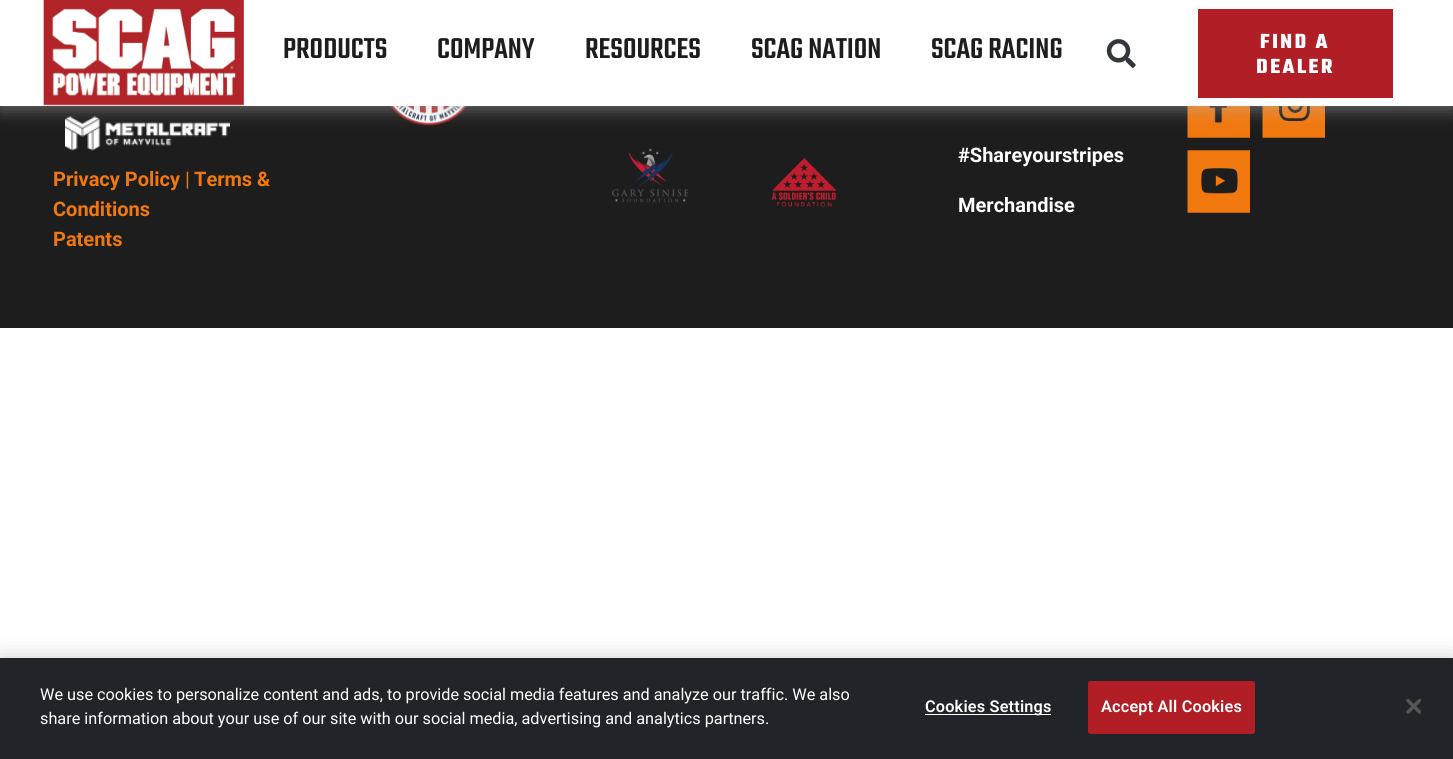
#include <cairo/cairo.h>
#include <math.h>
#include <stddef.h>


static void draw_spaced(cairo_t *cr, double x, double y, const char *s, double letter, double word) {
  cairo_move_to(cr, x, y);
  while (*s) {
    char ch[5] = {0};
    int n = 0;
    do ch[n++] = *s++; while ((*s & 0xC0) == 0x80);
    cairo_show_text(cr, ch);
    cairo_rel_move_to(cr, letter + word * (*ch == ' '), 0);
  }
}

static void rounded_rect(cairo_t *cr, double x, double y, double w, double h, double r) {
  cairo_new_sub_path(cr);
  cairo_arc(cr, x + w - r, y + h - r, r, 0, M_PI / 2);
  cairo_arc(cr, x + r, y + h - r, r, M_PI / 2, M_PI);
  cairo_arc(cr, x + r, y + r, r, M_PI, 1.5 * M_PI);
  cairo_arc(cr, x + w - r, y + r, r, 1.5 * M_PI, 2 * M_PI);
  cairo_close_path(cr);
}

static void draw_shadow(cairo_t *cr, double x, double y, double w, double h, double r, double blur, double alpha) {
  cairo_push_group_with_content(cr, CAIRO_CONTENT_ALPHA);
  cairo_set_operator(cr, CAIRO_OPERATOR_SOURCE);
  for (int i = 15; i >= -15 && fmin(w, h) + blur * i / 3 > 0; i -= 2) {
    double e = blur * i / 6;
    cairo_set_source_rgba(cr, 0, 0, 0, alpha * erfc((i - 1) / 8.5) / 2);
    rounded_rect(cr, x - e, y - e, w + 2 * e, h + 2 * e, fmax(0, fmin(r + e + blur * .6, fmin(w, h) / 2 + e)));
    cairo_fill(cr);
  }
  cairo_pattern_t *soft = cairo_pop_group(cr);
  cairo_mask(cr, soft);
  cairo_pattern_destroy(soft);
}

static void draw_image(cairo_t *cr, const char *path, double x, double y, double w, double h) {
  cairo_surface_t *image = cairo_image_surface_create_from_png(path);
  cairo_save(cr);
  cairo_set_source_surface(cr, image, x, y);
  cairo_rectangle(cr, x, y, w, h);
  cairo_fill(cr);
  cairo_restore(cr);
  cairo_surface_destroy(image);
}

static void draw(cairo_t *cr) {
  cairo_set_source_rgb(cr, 1, 1, 1);
  cairo_paint(cr);
  cairo_set_source_rgb(cr, 29 / 255.0, 29 / 255.0, 29 / 255.0);
  cairo_rectangle(cr, 0, 106, 1453, 222);
  cairo_fill(cr);
  draw_image(cr, "images/3.png", 390, 106, 78, 20);
  draw_image(cr, "images/4.png", 65, 116, 165, 35);
  draw_image(cr, "images/7.png", 1187, 106, 63, 32);
  draw_image(cr, "images/8.png", 1262, 106, 63, 32);
  cairo_set_source_rgb(cr, 189 / 255.0, 189 / 255.0, 189 / 255.0);
  draw_shadow(cr, 0, 3, 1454, 106, 0, 9, 0.5);
  cairo_set_source_rgb(cr, 1, 1, 1);
  cairo_rectangle(cr, 0, 0, 1453, 106);
  cairo_fill(cr);
  draw_image(cr, "images/1.png", 43, 0, 201, 106);
  draw_image(cr, "images/2.png", 1106, 39, 30, 29);
  cairo_set_source_rgb(cr, 177 / 255.0, 30 / 255.0, 37 / 255.0);
  cairo_rectangle(cr, 1198, 9, 195, 89);
  cairo_fill(cr);
  draw_image(cr, "images/5.png", 612, 148, 76, 55);
  draw_image(cr, "images/6.png", 771, 158, 66, 49);
  draw_image(cr, "images/9.png", 1187, 150, 63, 63);
  cairo_set_source_rgb(cr, 0, 0, 0);
  draw_shadow(cr, 0, 658, 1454, 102, 0, 11, 0.2);
  cairo_set_source_rgb(cr, 33 / 255.0, 37 / 255.0, 41 / 255.0);
  cairo_rectangle(cr, 0, 658, 1453, 101);
  cairo_fill(cr);
  cairo_set_source_rgb(cr, 1, 1, 1);
  cairo_rectangle(cr, 925, 714, 126, 1);
  cairo_fill(cr);
  cairo_set_source_rgb(cr, 177 / 255.0, 30 / 255.0, 37 / 255.0);
  rounded_rect(cr, 1088.5, 681.5, 166, 52, 2);
  cairo_fill_preserve(cr);
  cairo_set_line_width(cr, 1);
  cairo_stroke(cr);
  draw_image(cr, "images/10.png", 1406, 699, 15, 15);
  cairo_select_font_face(cr, "Teko Medium", CAIRO_FONT_SLANT_NORMAL, CAIRO_FONT_WEIGHT_NORMAL);
  cairo_set_font_size(cr, 31.5);
  cairo_set_source_rgb(cr, 29 / 255.0, 29 / 255.0, 29 / 255.0);
  cairo_move_to(cr, 283, 58);
  cairo_show_text(cr, "PRODUCTS");
  cairo_move_to(cr, 437, 58);
  cairo_show_text(cr, "COMPANY");
  cairo_move_to(cr, 585, 58);
  cairo_show_text(cr, "RESOURCES");
  cairo_move_to(cr, 751, 58);
  cairo_show_text(cr, "SCAG NATION");
  cairo_move_to(cr, 931, 58);
  cairo_show_text(cr, "SCAG RACING");
  cairo_select_font_face(cr, "Teko", CAIRO_FONT_SLANT_NORMAL, CAIRO_FONT_WEIGHT_BOLD);
  cairo_set_font_size(cr, 22);
  cairo_set_source_rgb(cr, 1, 1, 1);
  draw_spaced(cr, 1260, 48, "FIND A", 2.5, 0);
  draw_spaced(cr, 1256, 73, "DEALER", 2.5, 0);
  cairo_select_font_face(cr, "Roboto", CAIRO_FONT_SLANT_NORMAL, CAIRO_FONT_WEIGHT_BOLD);
  cairo_set_font_size(cr, 20);
  cairo_set_source_rgb(cr, 240 / 255.0, 120 / 255.0, 15 / 255.0);
  cairo_move_to(cr, 53, 186);
  cairo_show_text(cr, "Privacy Policy");
  cairo_select_font_face(cr, "Roboto", CAIRO_FONT_SLANT_NORMAL, CAIRO_FONT_WEIGHT_NORMAL);
  cairo_move_to(cr, 185, 186);
  cairo_show_text(cr, "|");
  cairo_select_font_face(cr, "Roboto", CAIRO_FONT_SLANT_NORMAL, CAIRO_FONT_WEIGHT_BOLD);
  cairo_move_to(cr, 194, 186);
  cairo_show_text(cr, "Terms &");
  cairo_move_to(cr, 53, 216);
  cairo_show_text(cr, "Conditions");
  cairo_move_to(cr, 53, 246);
  cairo_show_text(cr, "Patents");
  cairo_set_source_rgb(cr, 1, 1, 1);
  cairo_move_to(cr, 958, 162);
  cairo_show_text(cr, "#Shareyourstripes");
  cairo_move_to(cr, 958, 212);
  cairo_show_text(cr, "Merchandise");
  cairo_select_font_face(cr, "Roboto", CAIRO_FONT_SLANT_NORMAL, CAIRO_FONT_WEIGHT_NORMAL);
  cairo_set_font_size(cr, 16.25);
  cairo_move_to(cr, 40, 700);
  cairo_show_text(cr, "We use cookies to personalize content and ads, to provide social media features and analyze our traffic. We also");
  cairo_move_to(cr, 40, 724);
  cairo_show_text(cr, "share information about your use of our site with our social media, advertising and analytics partners.");
  cairo_select_font_face(cr, "Roboto SemiBold", CAIRO_FONT_SLANT_NORMAL, CAIRO_FONT_WEIGHT_NORMAL);
  draw_spaced(cr, 925, 712, "Cookies Settings", 0.2, 0);
  draw_spaced(cr, 1101, 712, "Accept All Cookies", 0.2, 0);
}

int main(void) {
  cairo_surface_t *surface = cairo_image_surface_create(CAIRO_FORMAT_RGB24, 1453, 759);
  cairo_t *cr = cairo_create(surface);
  cairo_font_options_t *options = cairo_font_options_create();
  cairo_font_options_set_hint_metrics(options, CAIRO_HINT_METRICS_OFF);
  cairo_font_options_set_hint_style(options, CAIRO_HINT_STYLE_NONE);
  cairo_set_font_options(cr, options);
  cairo_set_miter_limit(cr, 4);
  draw(cr);
  cairo_surface_write_to_png(surface, "out.png");
  cairo_font_options_destroy(options);
  cairo_destroy(cr);
  cairo_surface_destroy(surface);
  return 0;
}
